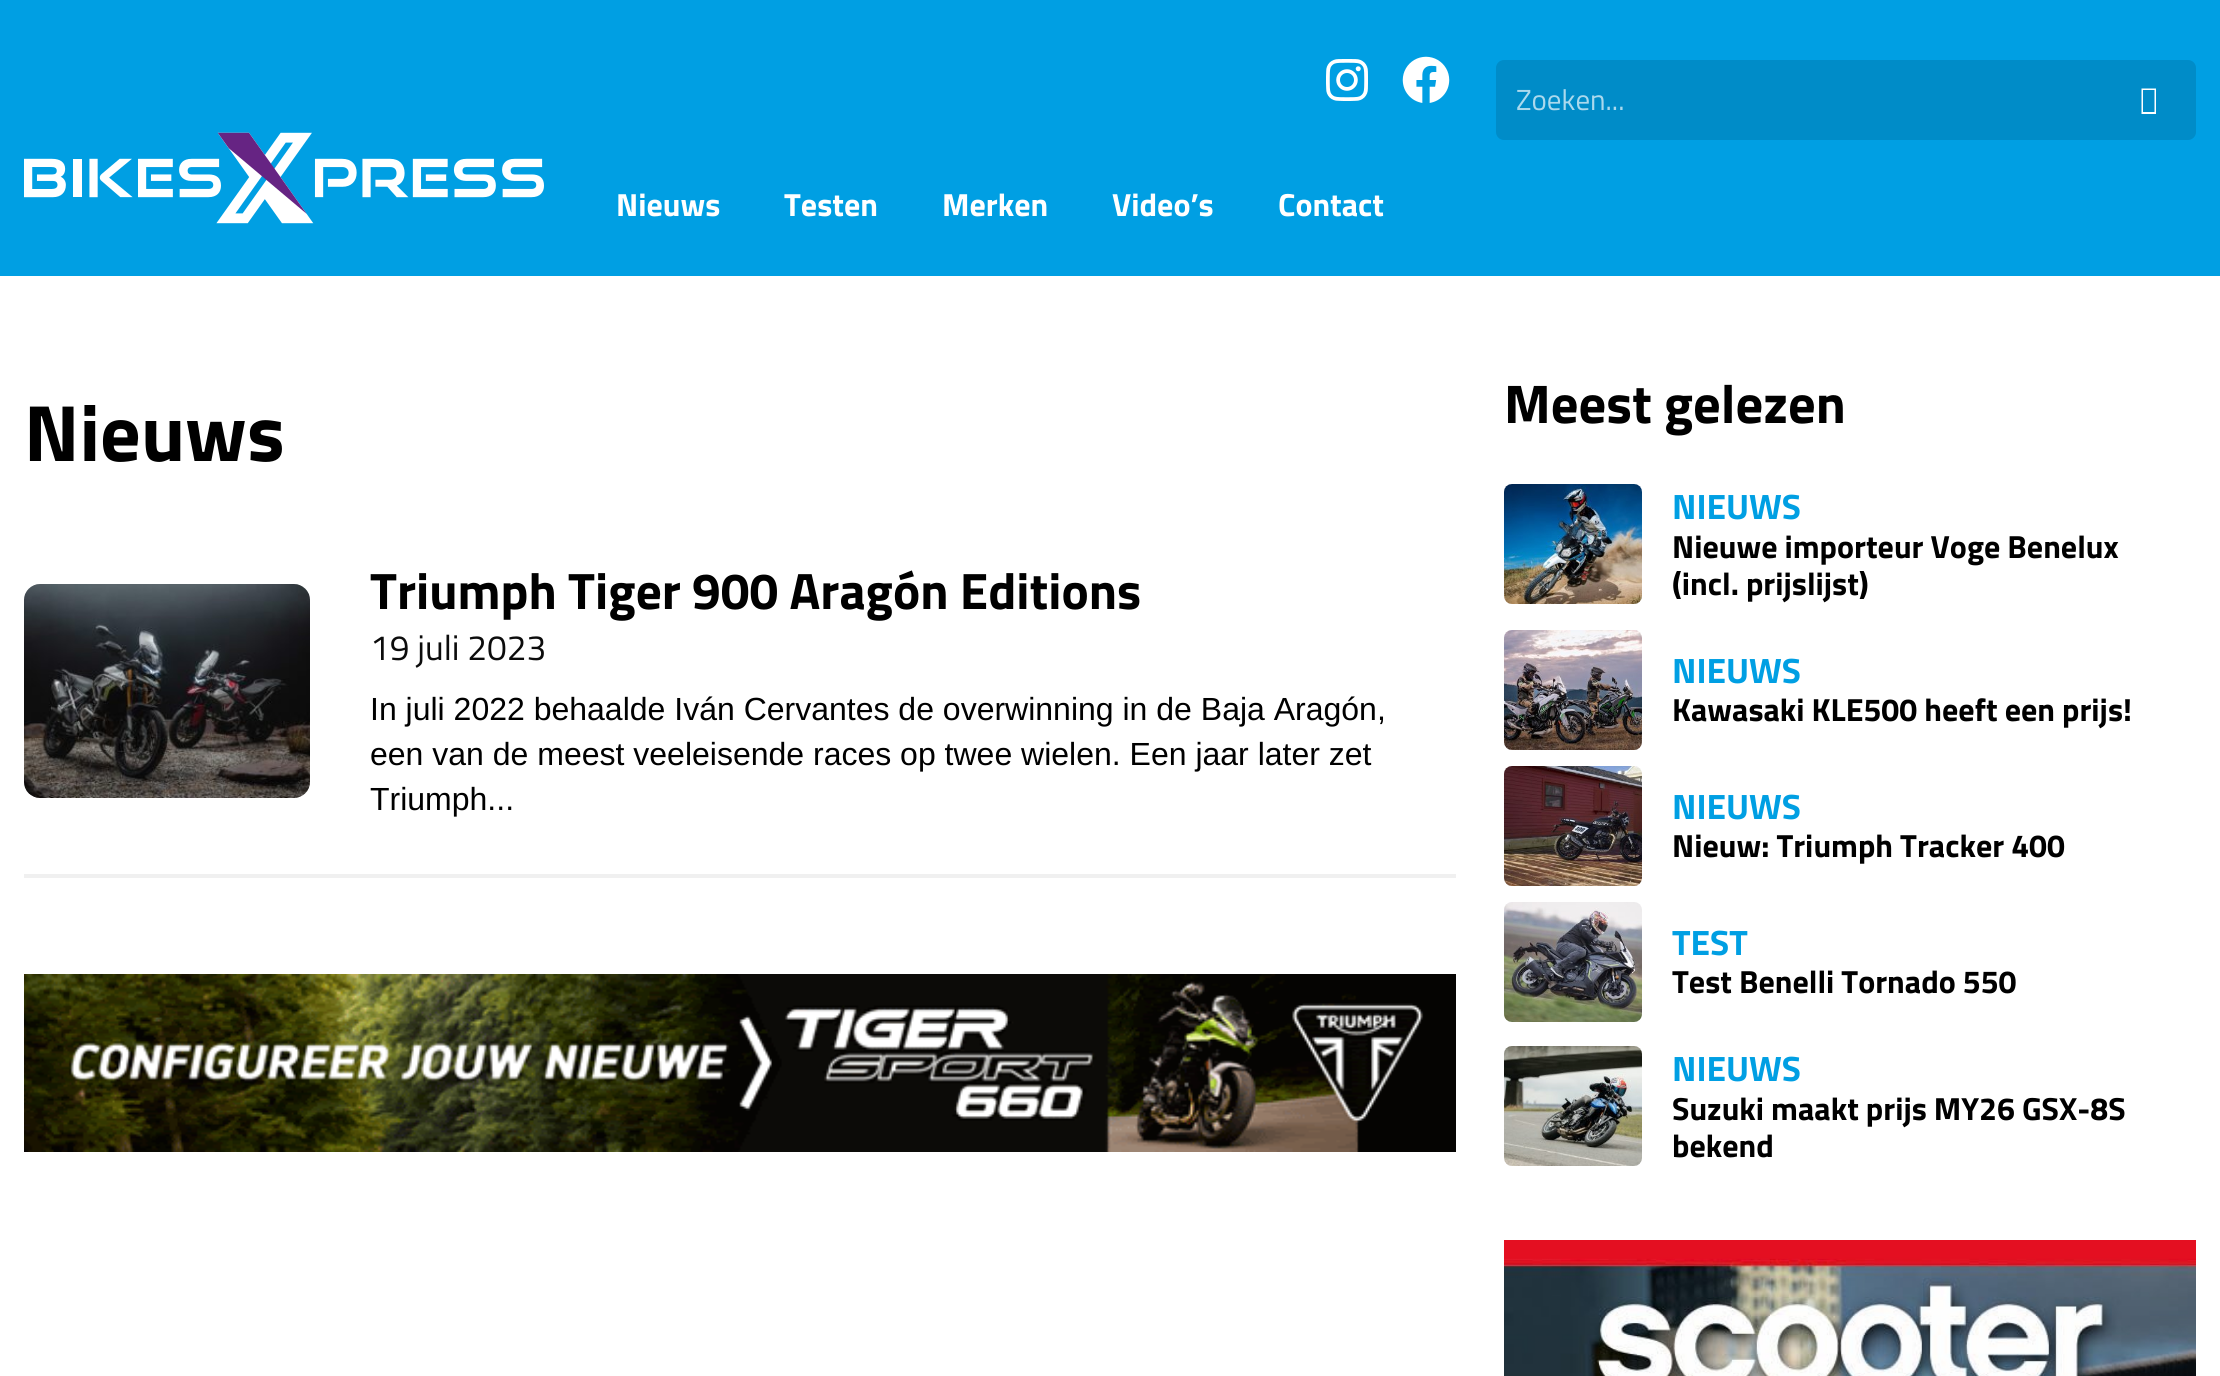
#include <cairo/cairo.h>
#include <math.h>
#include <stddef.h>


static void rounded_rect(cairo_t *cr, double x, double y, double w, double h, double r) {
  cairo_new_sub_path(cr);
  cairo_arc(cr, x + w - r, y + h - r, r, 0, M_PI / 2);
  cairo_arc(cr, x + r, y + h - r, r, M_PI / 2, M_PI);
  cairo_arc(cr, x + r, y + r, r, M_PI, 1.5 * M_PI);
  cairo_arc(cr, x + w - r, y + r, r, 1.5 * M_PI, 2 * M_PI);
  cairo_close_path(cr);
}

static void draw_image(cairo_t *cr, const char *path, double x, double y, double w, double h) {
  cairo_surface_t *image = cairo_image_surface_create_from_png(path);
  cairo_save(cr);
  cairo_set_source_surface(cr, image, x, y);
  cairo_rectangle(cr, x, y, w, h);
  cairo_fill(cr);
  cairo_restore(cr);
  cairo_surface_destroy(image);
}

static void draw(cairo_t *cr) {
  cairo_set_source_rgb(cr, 1, 1, 1);
  cairo_paint(cr);
  cairo_set_source_rgb(cr, 0, 159 / 255.0, 227 / 255.0);
  cairo_rectangle(cr, 0, 0, 2220, 276);
  cairo_fill(cr);
  draw_image(cr, "images/1.png", 24, 132, 520, 92);
  draw_image(cr, "images/2.png", 1326, 59, 42, 42);
  draw_image(cr, "images/3.png", 1402, 56, 48, 47);
  cairo_set_source_rgb(cr, 0, 140 / 255.0, 200 / 255.0);
  rounded_rect(cr, 1496, 60, 700, 80, 8);
  cairo_fill(cr);
  cairo_set_source_rgb(cr, 1, 1, 1);
  cairo_new_path(cr);
  cairo_move_to(cr, 2141.5, 114);
  cairo_line_to(cr, 2141.5, 88.5);
  cairo_line_to(cr, 2156, 88.5);
  cairo_line_to(cr, 2156, 114);
  cairo_close_path(cr);
  cairo_move_to(cr, 2143, 112);
  cairo_line_to(cr, 2154.5, 112);
  cairo_line_to(cr, 2154.5, 90);
  cairo_line_to(cr, 2143, 90);
  cairo_close_path(cr);
  cairo_fill(cr);
  cairo_set_source_rgb(cr, 240 / 255.0, 240 / 255.0, 240 / 255.0);
  cairo_rectangle(cr, 24, 874, 1432, 4);
  cairo_fill(cr);
  draw_image(cr, "images/4.png", 24, 584, 286, 214);
  draw_image(cr, "images/5.png", 24, 974, 1432, 178);
  draw_image(cr, "images/6.png", 1504, 484, 138, 120);
  draw_image(cr, "images/7.png", 1504, 630, 138, 120);
  draw_image(cr, "images/8.png", 1504, 766, 138, 120);
  draw_image(cr, "images/9.png", 1504, 902, 138, 120);
  draw_image(cr, "images/10.png", 1504, 1046, 138, 120);
  draw_image(cr, "images/11.png", 1504, 1240, 692, 136);
  cairo_select_font_face(cr, "Titillium Web", CAIRO_FONT_SLANT_NORMAL, CAIRO_FONT_WEIGHT_NORMAL);
  cairo_set_font_size(cr, 29);
  cairo_set_source_rgb(cr, 171 / 255.0, 217 / 255.0, 237 / 255.0);
  cairo_move_to(cr, 1516, 110);
  cairo_show_text(cr, "Zoeken...");
  cairo_select_font_face(cr, "Titillium Web", CAIRO_FONT_SLANT_NORMAL, CAIRO_FONT_WEIGHT_BOLD);
  cairo_set_font_size(cr, 32);
  cairo_set_source_rgb(cr, 1, 1, 1);
  cairo_move_to(cr, 616, 216);
  cairo_show_text(cr, "Nieuws");
  cairo_move_to(cr, 784, 216);
  cairo_show_text(cr, "Testen");
  cairo_move_to(cr, 942, 216);
  cairo_show_text(cr, "Merken");
  cairo_move_to(cr, 1112, 216);
  cairo_show_text(cr, "Video’s");
  cairo_move_to(cr, 1278, 216);
  cairo_show_text(cr, "Contact");
  cairo_set_font_size(cr, 80);
  cairo_set_source_rgb(cr, 0, 0, 0);
  cairo_move_to(cr, 24, 461);
  cairo_show_text(cr, "Nieuws");
  cairo_set_font_size(cr, 51.25);
  cairo_move_to(cr, 370, 609);
  cairo_show_text(cr, "Triumph Tiger 900 Aragón Editions");
  cairo_select_font_face(cr, "Titillium Web", CAIRO_FONT_SLANT_NORMAL, CAIRO_FONT_WEIGHT_NORMAL);
  cairo_set_font_size(cr, 35.25);
  cairo_set_source_rgb(cr, 12 / 255.0, 12 / 255.0, 12 / 255.0);
  cairo_move_to(cr, 370, 660);
  cairo_show_text(cr, "19 juli 2023");
  cairo_select_font_face(cr, "Liberation Sans", CAIRO_FONT_SLANT_NORMAL, CAIRO_FONT_WEIGHT_NORMAL);
  cairo_set_font_size(cr, 32);
  cairo_set_source_rgb(cr, 0, 0, 0);
  cairo_move_to(cr, 370, 720);
  cairo_show_text(cr, "In juli 2022 behaalde Iván Cervantes de overwinning in de Baja Aragón,");
  cairo_move_to(cr, 370, 765);
  cairo_show_text(cr, "een van de meest veeleisende races op twee wielen. Een jaar later zet");
  cairo_move_to(cr, 370, 810);
  cairo_show_text(cr, "Triumph...");
  cairo_select_font_face(cr, "Titillium Web", CAIRO_FONT_SLANT_NORMAL, CAIRO_FONT_WEIGHT_BOLD);
  cairo_set_font_size(cr, 54.5);
  cairo_move_to(cr, 1504, 423);
  cairo_show_text(cr, "Meest gelezen");
  cairo_set_font_size(cr, 35.25);
  cairo_set_source_rgb(cr, 0, 159 / 255.0, 227 / 255.0);
  cairo_move_to(cr, 1672, 519);
  cairo_show_text(cr, "NIEUWS");
  cairo_set_font_size(cr, 32);
  cairo_set_source_rgb(cr, 0, 0, 0);
  cairo_move_to(cr, 1672, 558);
  cairo_show_text(cr, "Nieuwe importeur Voge Benelux");
  cairo_move_to(cr, 1672, 595);
  cairo_show_text(cr, "(incl. prijslijst)");
  cairo_set_font_size(cr, 35.25);
  cairo_set_source_rgb(cr, 0, 159 / 255.0, 227 / 255.0);
  cairo_move_to(cr, 1672, 683);
  cairo_show_text(cr, "NIEUWS");
  cairo_set_font_size(cr, 32);
  cairo_set_source_rgb(cr, 0, 0, 0);
  cairo_move_to(cr, 1672, 721);
  cairo_show_text(cr, "Kawasaki KLE500 heeft een prijs!");
  cairo_set_font_size(cr, 35.25);
  cairo_set_source_rgb(cr, 0, 159 / 255.0, 227 / 255.0);
  cairo_move_to(cr, 1672, 819);
  cairo_show_text(cr, "NIEUWS");
  cairo_set_font_size(cr, 32);
  cairo_set_source_rgb(cr, 0, 0, 0);
  cairo_move_to(cr, 1672, 857);
  cairo_show_text(cr, "Nieuw: Triumph Tracker 400");
  cairo_set_font_size(cr, 35.25);
  cairo_set_source_rgb(cr, 0, 159 / 255.0, 227 / 255.0);
  cairo_move_to(cr, 1672, 955);
  cairo_show_text(cr, "TEST");
  cairo_set_font_size(cr, 32);
  cairo_set_source_rgb(cr, 0, 0, 0);
  cairo_move_to(cr, 1672, 993);
  cairo_show_text(cr, "Test Benelli Tornado 550");
  cairo_set_font_size(cr, 35.25);
  cairo_set_source_rgb(cr, 0, 159 / 255.0, 227 / 255.0);
  cairo_move_to(cr, 1672, 1081);
  cairo_show_text(cr, "NIEUWS");
  cairo_set_font_size(cr, 32);
  cairo_set_source_rgb(cr, 0, 0, 0);
  cairo_move_to(cr, 1672, 1120);
  cairo_show_text(cr, "Suzuki maakt prijs MY26 GSX-8S");
  cairo_move_to(cr, 1672, 1157);
  cairo_show_text(cr, "bekend");
}

int main(void) {
  cairo_surface_t *surface = cairo_image_surface_create(CAIRO_FORMAT_RGB24, 2220, 1376);
  cairo_t *cr = cairo_create(surface);
  cairo_font_options_t *options = cairo_font_options_create();
  cairo_font_options_set_hint_metrics(options, CAIRO_HINT_METRICS_OFF);
  cairo_font_options_set_hint_style(options, CAIRO_HINT_STYLE_NONE);
  cairo_set_font_options(cr, options);
  cairo_set_miter_limit(cr, 4);
  draw(cr);
  cairo_surface_write_to_png(surface, "out.png");
  cairo_font_options_destroy(options);
  cairo_destroy(cr);
  cairo_surface_destroy(surface);
  return 0;
}
